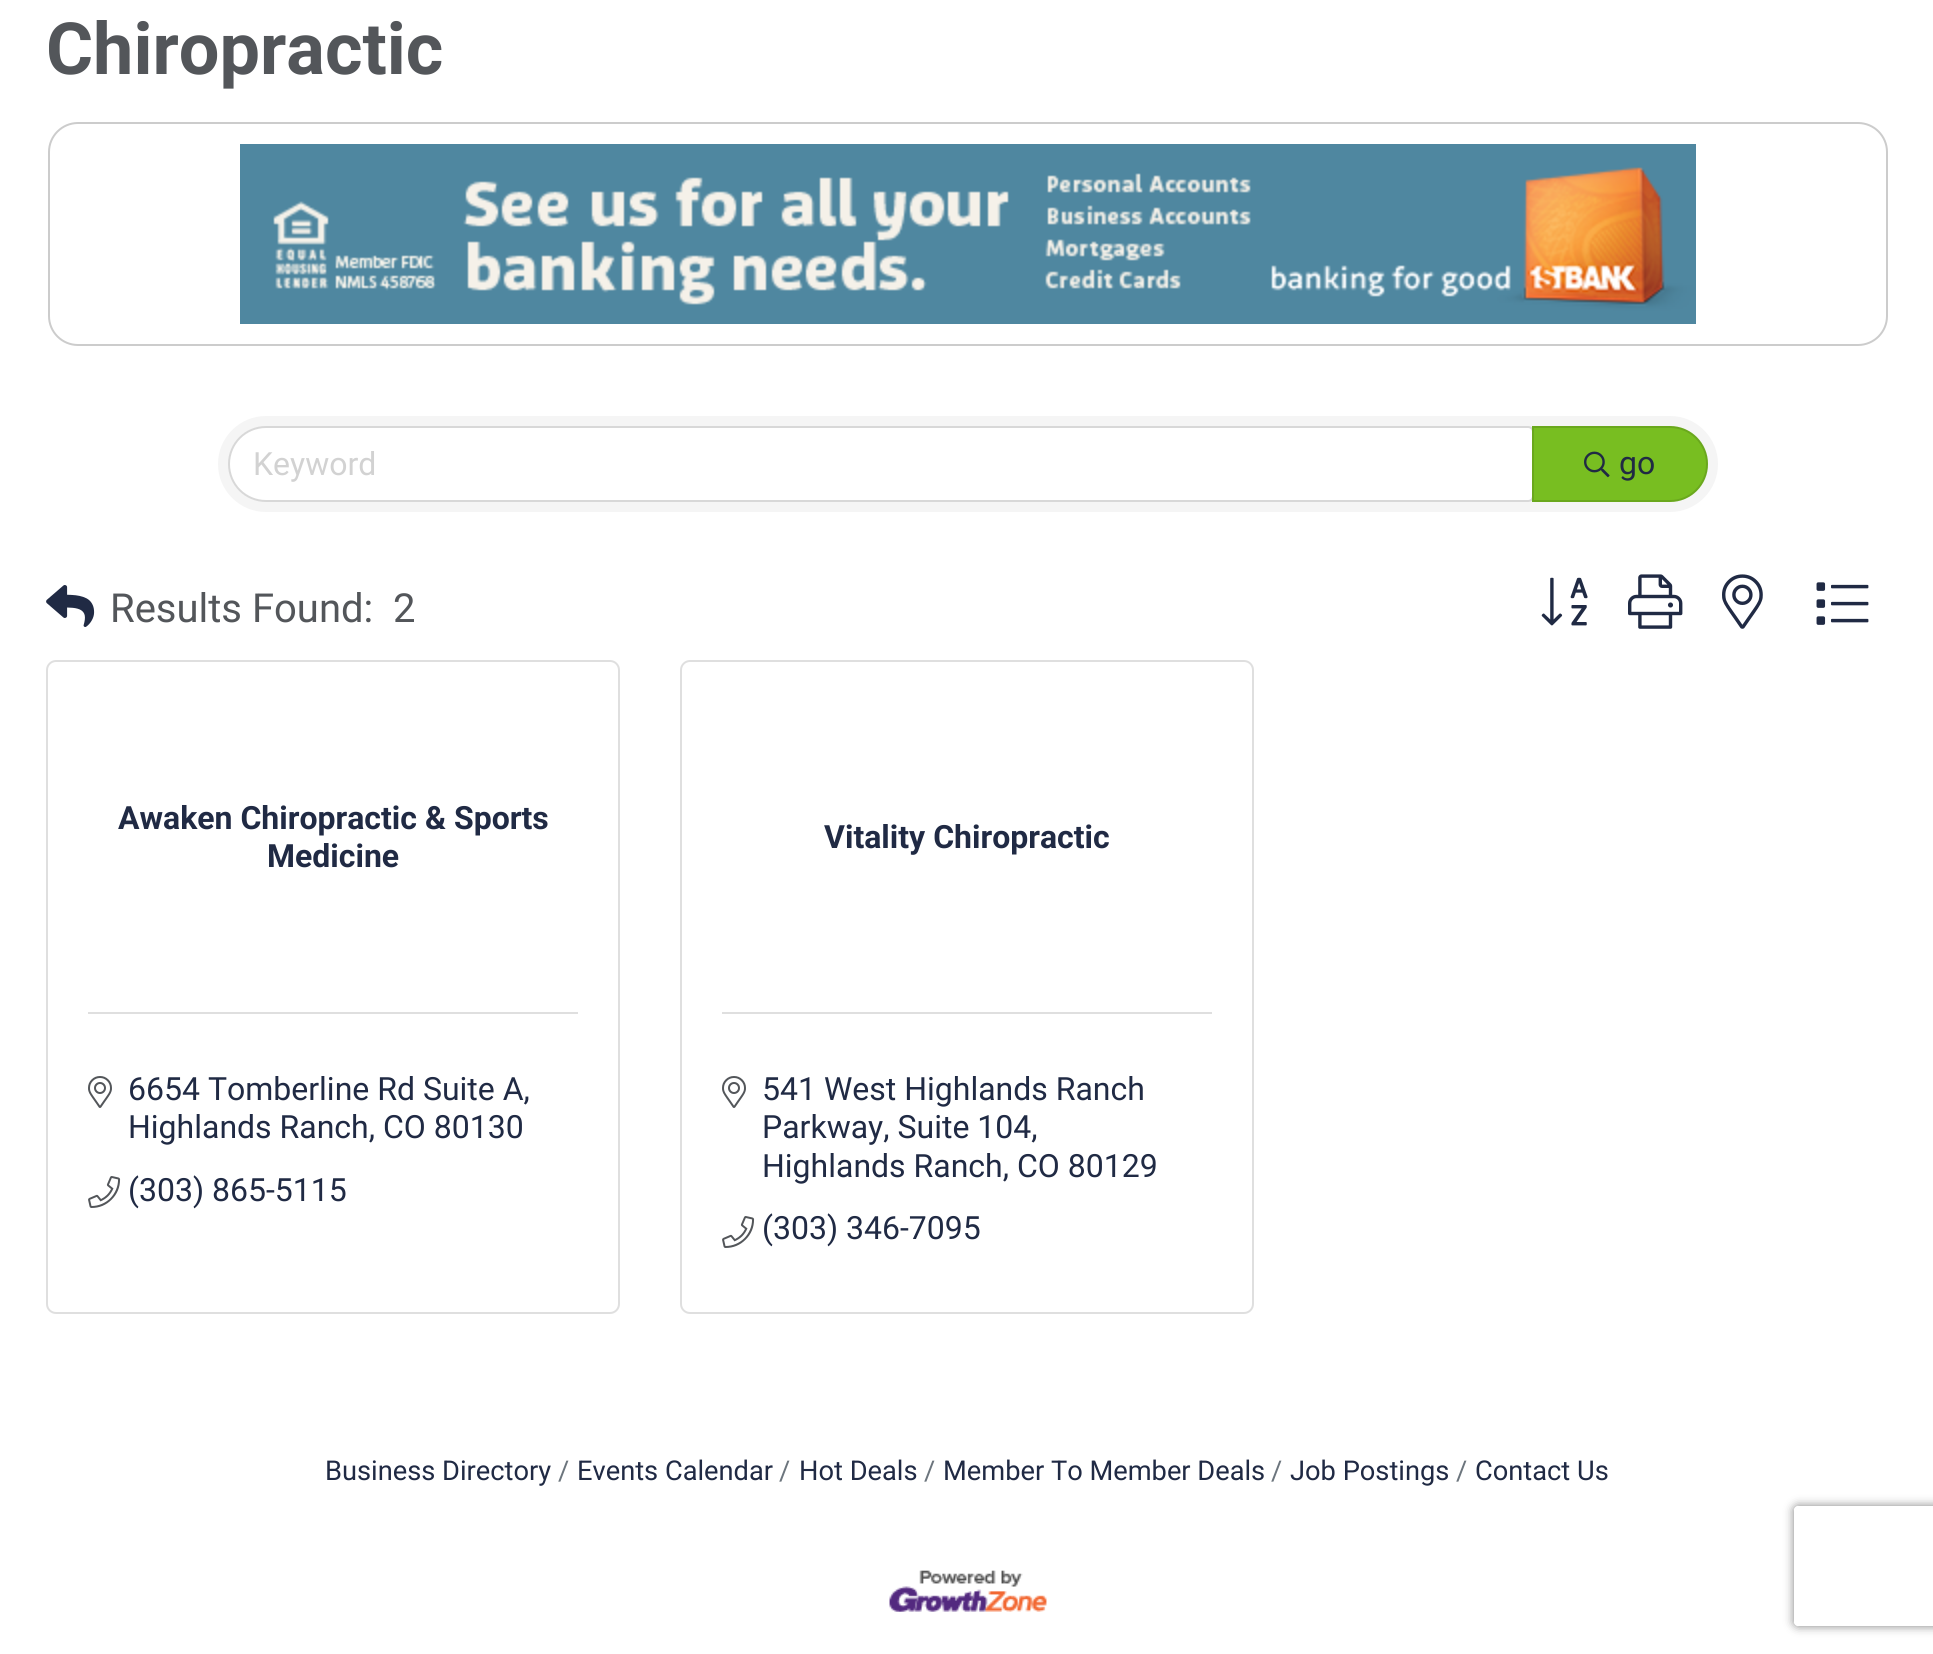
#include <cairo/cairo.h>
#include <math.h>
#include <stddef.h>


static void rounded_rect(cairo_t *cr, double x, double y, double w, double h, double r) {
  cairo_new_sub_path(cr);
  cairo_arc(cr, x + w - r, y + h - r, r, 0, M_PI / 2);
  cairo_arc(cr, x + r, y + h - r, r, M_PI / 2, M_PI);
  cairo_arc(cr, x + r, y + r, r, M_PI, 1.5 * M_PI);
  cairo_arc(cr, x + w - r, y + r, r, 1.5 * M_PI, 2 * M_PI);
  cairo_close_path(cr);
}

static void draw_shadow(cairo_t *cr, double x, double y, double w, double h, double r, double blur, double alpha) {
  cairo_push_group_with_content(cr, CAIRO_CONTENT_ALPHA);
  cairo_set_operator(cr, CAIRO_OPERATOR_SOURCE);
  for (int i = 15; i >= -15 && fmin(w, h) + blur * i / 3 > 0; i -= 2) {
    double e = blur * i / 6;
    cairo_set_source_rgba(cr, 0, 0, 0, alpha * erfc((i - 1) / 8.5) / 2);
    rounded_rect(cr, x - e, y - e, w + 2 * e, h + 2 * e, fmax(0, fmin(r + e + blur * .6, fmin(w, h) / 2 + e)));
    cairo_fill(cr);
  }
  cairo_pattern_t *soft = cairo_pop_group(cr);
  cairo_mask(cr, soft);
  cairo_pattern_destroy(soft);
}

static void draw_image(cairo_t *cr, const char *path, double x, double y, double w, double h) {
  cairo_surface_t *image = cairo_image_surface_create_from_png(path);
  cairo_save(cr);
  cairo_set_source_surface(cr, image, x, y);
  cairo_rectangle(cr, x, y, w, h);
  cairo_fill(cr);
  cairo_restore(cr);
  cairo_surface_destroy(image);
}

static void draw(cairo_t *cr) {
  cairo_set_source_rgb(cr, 1, 1, 1);
  cairo_paint(cr);
  rounded_rect(cr, 49, 123, 1838, 222, 29);
  cairo_set_source_rgb(cr, 204 / 255.0, 204 / 255.0, 204 / 255.0);
  cairo_stroke(cr);
  draw_image(cr, "images/1.png", 240, 144, 1456, 180);
  cairo_set_source_rgb(cr, 245 / 255.0, 245 / 255.0, 245 / 255.0);
  rounded_rect(cr, 218, 416, 1500, 96, 48);
  cairo_fill(cr);
  cairo_set_source_rgb(cr, 1, 1, 1);
  cairo_new_path(cr);
  cairo_move_to(cr, 266, 428);
  cairo_line_to(cr, 1528, 428);
  cairo_curve_to(cr, 1530, 428, 1532, 430, 1532, 432);
  cairo_line_to(cr, 1532, 496);
  cairo_curve_to(cr, 1532, 498, 1530, 500, 1528, 500);
  cairo_line_to(cr, 266, 500);
  cairo_curve_to(cr, 246, 500, 230, 484, 230, 464);
  cairo_curve_to(cr, 230, 444, 246, 428, 266, 428);
  cairo_close_path(cr);
  cairo_fill(cr);
  cairo_new_path(cr);
  cairo_move_to(cr, 266, 427);
  cairo_line_to(cr, 1528, 427);
  cairo_curve_to(cr, 1531, 427, 1533, 429, 1533, 432);
  cairo_line_to(cr, 1533, 496);
  cairo_curve_to(cr, 1533, 499, 1531, 501, 1528, 501);
  cairo_line_to(cr, 266, 501);
  cairo_curve_to(cr, 245.5, 501, 229, 484.5, 229, 464);
  cairo_curve_to(cr, 229, 443.5, 245.5, 427, 266, 427);
  cairo_close_path(cr);
  cairo_set_source_rgba(cr, 0, 0, 0, 0.12);
  cairo_stroke(cr);
  cairo_set_source_rgb(cr, 120 / 255.0, 190 / 255.0, 33 / 255.0);
  cairo_new_path(cr);
  cairo_move_to(cr, 1532, 426);
  cairo_line_to(cr, 1670, 426);
  cairo_curve_to(cr, 1691, 426, 1708, 443, 1708, 464);
  cairo_curve_to(cr, 1708, 485, 1691, 502, 1670, 502);
  cairo_line_to(cr, 1532, 502);
  cairo_close_path(cr);
  cairo_fill(cr);
  cairo_new_path(cr);
  cairo_move_to(cr, 1533, 427);
  cairo_line_to(cr, 1670, 427);
  cairo_curve_to(cr, 1690.5, 427, 1707, 443.5, 1707, 464);
  cairo_curve_to(cr, 1707, 484.5, 1690.5, 501, 1670, 501);
  cairo_line_to(cr, 1533, 501);
  cairo_close_path(cr);
  cairo_set_source_rgba(cr, 0, 0, 0, 0.12);
  cairo_stroke(cr);
  draw_image(cr, "images/2.png", 1584, 451, 26, 27);
  draw_image(cr, "images/3.png", 46, 585, 49, 42);
  draw_image(cr, "images/4.png", 1541, 577, 47, 49);
  draw_image(cr, "images/5.png", 1628, 574, 55, 55);
  draw_image(cr, "images/6.png", 1722, 574, 41, 55);
  draw_image(cr, "images/7.png", 1816, 582, 53, 43);
  rounded_rect(cr, 47, 661, 572, 652, 9);
  cairo_set_source_rgb(cr, 223 / 255.0, 223 / 255.0, 223 / 255.0);
  cairo_stroke(cr);
  cairo_rectangle(cr, 88, 1012, 490, 2);
  cairo_fill(cr);
  draw_image(cr, "images/8.png", 88, 1076, 24, 32);
  draw_image(cr, "images/9.png", 88, 1176, 33, 32);
  rounded_rect(cr, 681, 661, 572, 652, 9);
  cairo_stroke(cr);
  cairo_rectangle(cr, 722, 1012, 490, 2);
  cairo_fill(cr);
  draw_image(cr, "images/8.png", 722, 1076, 24, 32);
  draw_image(cr, "images/9.png", 722, 1216, 33, 32);
  draw_image(cr, "images/10.png", 889, 1570, 158, 42);
  cairo_save(cr);
  cairo_set_fill_rule(cr, CAIRO_FILL_RULE_EVEN_ODD);
  cairo_new_path(cr);
  cairo_move_to(cr, 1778, 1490);
  cairo_line_to(cr, 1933, 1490);
  cairo_line_to(cr, 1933, 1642);
  cairo_line_to(cr, 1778, 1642);
  cairo_close_path(cr);
  cairo_move_to(cr, 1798, 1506);
  cairo_line_to(cr, 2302, 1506);
  cairo_curve_to(cr, 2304, 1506, 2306, 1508, 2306, 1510);
  cairo_line_to(cr, 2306, 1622);
  cairo_curve_to(cr, 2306, 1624, 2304, 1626, 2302, 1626);
  cairo_line_to(cr, 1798, 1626);
  cairo_curve_to(cr, 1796, 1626, 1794, 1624, 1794, 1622);
  cairo_line_to(cr, 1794, 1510);
  cairo_curve_to(cr, 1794, 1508, 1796, 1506, 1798, 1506);
  cairo_close_path(cr);
  cairo_clip(cr);
  cairo_set_source_rgb(cr, 128 / 255.0, 128 / 255.0, 128 / 255.0);
  draw_shadow(cr, 1794, 1506, 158, 120, 4, 5, 1);
  cairo_restore(cr);
  cairo_select_font_face(cr, "Roboto", CAIRO_FONT_SLANT_NORMAL, CAIRO_FONT_WEIGHT_BOLD);
  cairo_set_font_size(cr, 72);
  cairo_set_source_rgb(cr, 83 / 255.0, 86 / 255.0, 90 / 255.0);
  cairo_move_to(cr, 46, 74);
  cairo_show_text(cr, "Chiropractic");
  cairo_select_font_face(cr, "Roboto", CAIRO_FONT_SLANT_NORMAL, CAIRO_FONT_WEIGHT_NORMAL);
  cairo_set_font_size(cr, 32);
  cairo_set_source_rgb(cr, 210 / 255.0, 210 / 255.0, 210 / 255.0);
  cairo_move_to(cr, 253, 475);
  cairo_show_text(cr, "Keyword");
  cairo_set_source_rgb(cr, 32 / 255.0, 42 / 255.0, 68 / 255.0);
  cairo_move_to(cr, 1619, 474);
  cairo_show_text(cr, "go");
  cairo_set_font_size(cr, 40);
  cairo_set_source_rgb(cr, 83 / 255.0, 86 / 255.0, 90 / 255.0);
  cairo_move_to(cr, 110, 622);
  cairo_show_text(cr, "Results Found:");
  cairo_move_to(cr, 393, 622);
  cairo_show_text(cr, "2");
  cairo_select_font_face(cr, "Roboto", CAIRO_FONT_SLANT_NORMAL, CAIRO_FONT_WEIGHT_BOLD);
  cairo_set_font_size(cr, 32);
  cairo_set_source_rgb(cr, 32 / 255.0, 42 / 255.0, 68 / 255.0);
  cairo_move_to(cr, 118, 829);
  cairo_show_text(cr, "Awaken Chiropractic & Sports");
  cairo_move_to(cr, 267, 867);
  cairo_show_text(cr, "Medicine");
  cairo_select_font_face(cr, "Roboto", CAIRO_FONT_SLANT_NORMAL, CAIRO_FONT_WEIGHT_NORMAL);
  cairo_move_to(cr, 128, 1100);
  cairo_show_text(cr, "6654 Tomberline Rd Suite A,");
  cairo_move_to(cr, 128, 1138);
  cairo_show_text(cr, "Highlands Ranch, CO 80130");
  cairo_move_to(cr, 128, 1201);
  cairo_show_text(cr, "(303) 865-5115");
  cairo_select_font_face(cr, "Roboto", CAIRO_FONT_SLANT_NORMAL, CAIRO_FONT_WEIGHT_BOLD);
  cairo_move_to(cr, 824, 848);
  cairo_show_text(cr, "Vitality Chiropractic");
  cairo_select_font_face(cr, "Roboto", CAIRO_FONT_SLANT_NORMAL, CAIRO_FONT_WEIGHT_NORMAL);
  cairo_move_to(cr, 762, 1100);
  cairo_show_text(cr, "541 West Highlands Ranch");
  cairo_move_to(cr, 762, 1138);
  cairo_show_text(cr, "Parkway, Suite 104,");
  cairo_move_to(cr, 762, 1177);
  cairo_show_text(cr, "Highlands Ranch, CO 80129");
  cairo_move_to(cr, 762, 1239);
  cairo_show_text(cr, "(303) 346-7095");
  cairo_set_font_size(cr, 27.25);
  cairo_move_to(cr, 325, 1480);
  cairo_show_text(cr, "Business Directory");
  cairo_set_source_rgb(cr, 108 / 255.0, 117 / 255.0, 125 / 255.0);
  cairo_move_to(cr, 558, 1480);
  cairo_show_text(cr, "/");
  cairo_set_source_rgb(cr, 32 / 255.0, 42 / 255.0, 68 / 255.0);
  cairo_move_to(cr, 577, 1480);
  cairo_show_text(cr, "Events Calendar");
  cairo_set_source_rgb(cr, 108 / 255.0, 117 / 255.0, 125 / 255.0);
  cairo_move_to(cr, 779, 1480);
  cairo_show_text(cr, "/");
  cairo_set_source_rgb(cr, 32 / 255.0, 42 / 255.0, 68 / 255.0);
  cairo_move_to(cr, 799, 1480);
  cairo_show_text(cr, "Hot Deals");
  cairo_set_source_rgb(cr, 108 / 255.0, 117 / 255.0, 125 / 255.0);
  cairo_move_to(cr, 924, 1480);
  cairo_show_text(cr, "/");
  cairo_set_source_rgb(cr, 32 / 255.0, 42 / 255.0, 68 / 255.0);
  cairo_move_to(cr, 943, 1480);
  cairo_show_text(cr, "Member To Member Deals");
  cairo_set_source_rgb(cr, 108 / 255.0, 117 / 255.0, 125 / 255.0);
  cairo_move_to(cr, 1271, 1480);
  cairo_show_text(cr, "/");
  cairo_set_source_rgb(cr, 32 / 255.0, 42 / 255.0, 68 / 255.0);
  cairo_move_to(cr, 1290, 1480);
  cairo_show_text(cr, "Job Postings");
  cairo_set_source_rgb(cr, 108 / 255.0, 117 / 255.0, 125 / 255.0);
  cairo_move_to(cr, 1456, 1480);
  cairo_show_text(cr, "/");
  cairo_set_source_rgb(cr, 32 / 255.0, 42 / 255.0, 68 / 255.0);
  cairo_move_to(cr, 1475, 1480);
  cairo_show_text(cr, "Contact Us");
}

int main(void) {
  cairo_surface_t *surface = cairo_image_surface_create(CAIRO_FORMAT_RGB24, 1933, 1654);
  cairo_t *cr = cairo_create(surface);
  cairo_font_options_t *options = cairo_font_options_create();
  cairo_font_options_set_hint_metrics(options, CAIRO_HINT_METRICS_OFF);
  cairo_font_options_set_hint_style(options, CAIRO_HINT_STYLE_NONE);
  cairo_set_font_options(cr, options);
  cairo_set_miter_limit(cr, 4);
  draw(cr);
  cairo_surface_write_to_png(surface, "out.png");
  cairo_font_options_destroy(options);
  cairo_destroy(cr);
  cairo_surface_destroy(surface);
  return 0;
}
